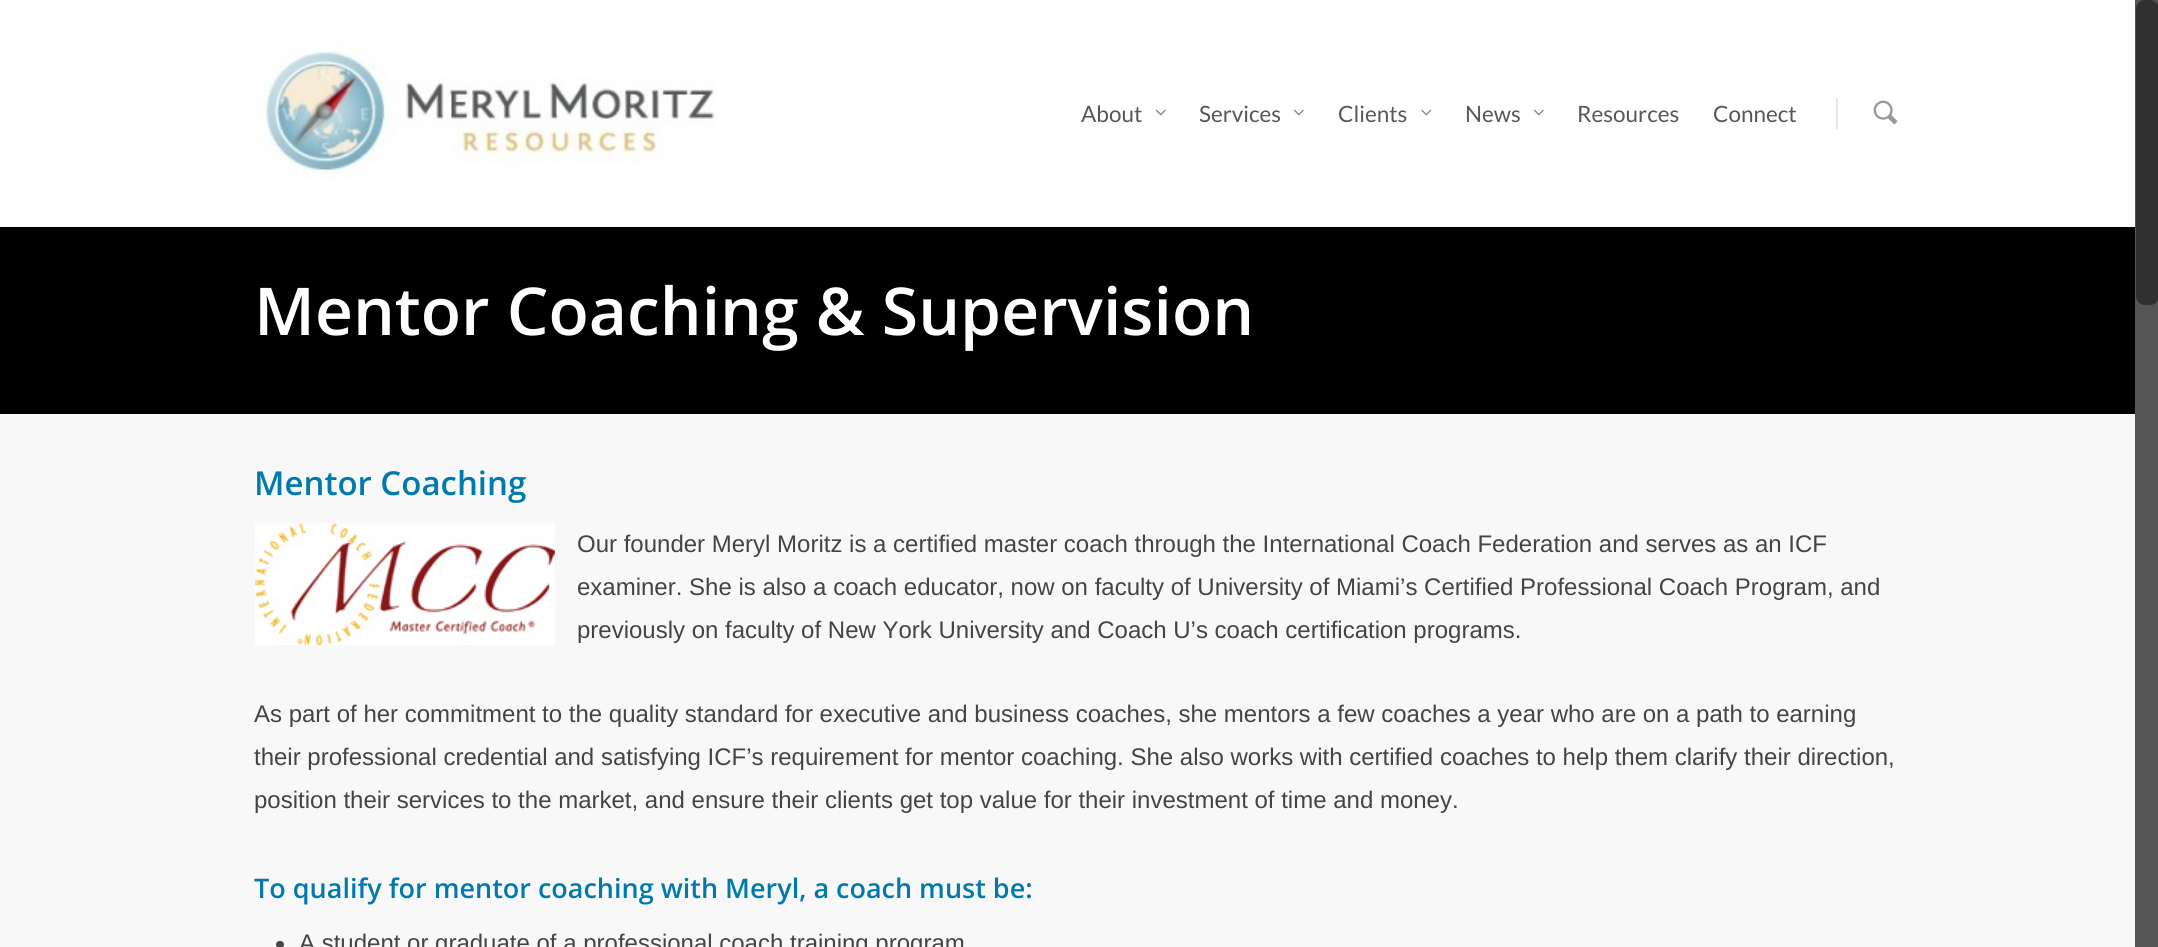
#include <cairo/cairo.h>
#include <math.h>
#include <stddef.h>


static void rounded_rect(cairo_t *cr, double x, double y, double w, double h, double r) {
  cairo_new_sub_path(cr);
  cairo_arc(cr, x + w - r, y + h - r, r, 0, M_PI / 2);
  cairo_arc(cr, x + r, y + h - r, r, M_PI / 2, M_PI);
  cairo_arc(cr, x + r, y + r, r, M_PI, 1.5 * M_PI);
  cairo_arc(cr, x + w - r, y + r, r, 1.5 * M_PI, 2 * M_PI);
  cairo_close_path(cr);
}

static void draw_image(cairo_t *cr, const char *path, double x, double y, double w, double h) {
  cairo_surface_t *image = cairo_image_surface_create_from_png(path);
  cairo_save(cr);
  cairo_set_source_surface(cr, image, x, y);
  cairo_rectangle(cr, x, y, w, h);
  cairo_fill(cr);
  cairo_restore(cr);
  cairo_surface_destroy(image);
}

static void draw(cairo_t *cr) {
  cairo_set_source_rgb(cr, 0, 0, 0);
  cairo_paint(cr);
  cairo_set_source_rgb(cr, 1, 1, 1);
  cairo_rectangle(cr, 0, 0, 2135, 227);
  cairo_fill(cr);
  draw_image(cr, "images/1.png", 255, 42, 462, 139);
  draw_image(cr, "images/2.png", 1155, 109, 11, 7);
  draw_image(cr, "images/2.png", 1293, 109, 11, 7);
  draw_image(cr, "images/3.png", 1421, 109, 11, 7);
  draw_image(cr, "images/2.png", 1533, 109, 11, 7);
  cairo_set_source_rgb(cr, 231 / 255.0, 231 / 255.0, 231 / 255.0);
  cairo_rectangle(cr, 1836, 98, 2, 31);
  cairo_fill(cr);
  draw_image(cr, "images/4.png", 1873, 100, 25, 25);
  cairo_set_source_rgb(cr, 85 / 255.0, 85 / 255.0, 85 / 255.0);
  cairo_rectangle(cr, 2135, 0, 23, 947);
  cairo_fill(cr);
  cairo_set_source_rgb(cr, 48 / 255.0, 48 / 255.0, 48 / 255.0);
  rounded_rect(cr, 2136, 0, 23, 305, 9);
  cairo_fill(cr);
  cairo_set_source_rgb(cr, 248 / 255.0, 248 / 255.0, 248 / 255.0);
  cairo_rectangle(cr, 0, 414, 2135, 533);
  cairo_fill(cr);
  draw_image(cr, "images/5.png", 255, 523, 300, 122);
  cairo_set_source_rgb(cr, 68 / 255.0, 68 / 255.0, 68 / 255.0);
  rounded_rect(cr, 276, 941, 8, 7, 3.5);
  cairo_fill(cr);
  cairo_select_font_face(cr, "Lato", CAIRO_FONT_SLANT_NORMAL, CAIRO_FONT_WEIGHT_NORMAL);
  cairo_set_font_size(cr, 22.5);
  cairo_set_source_rgb(cr, 87 / 255.0, 87 / 255.0, 87 / 255.0);
  cairo_move_to(cr, 1081, 122);
  cairo_show_text(cr, "About");
  cairo_move_to(cr, 1199, 122);
  cairo_show_text(cr, "Services");
  cairo_move_to(cr, 1338, 122);
  cairo_show_text(cr, "Clients");
  cairo_move_to(cr, 1465, 122);
  cairo_show_text(cr, "News");
  cairo_move_to(cr, 1577, 122);
  cairo_show_text(cr, "Resources");
  cairo_move_to(cr, 1713, 122);
  cairo_show_text(cr, "Connect");
  cairo_select_font_face(cr, "Open Sans SemiBold", CAIRO_FONT_SLANT_NORMAL, CAIRO_FONT_WEIGHT_NORMAL);
  cairo_set_font_size(cr, 66);
  cairo_set_source_rgb(cr, 1, 1, 1);
  cairo_move_to(cr, 254, 335);
  cairo_show_text(cr, "Mentor Coaching & Supervision");
  cairo_set_font_size(cr, 33);
  cairo_set_source_rgb(cr, 0, 122 / 255.0, 173 / 255.0);
  cairo_move_to(cr, 254, 495);
  cairo_show_text(cr, "Mentor Coaching");
  cairo_select_font_face(cr, "Liberation Sans", CAIRO_FONT_SLANT_NORMAL, CAIRO_FONT_WEIGHT_NORMAL);
  cairo_set_font_size(cr, 24);
  cairo_set_source_rgb(cr, 68 / 255.0, 68 / 255.0, 68 / 255.0);
  cairo_move_to(cr, 577, 552);
  cairo_show_text(cr, "Our founder Meryl Moritz is a certified master coach through the International Coach Federation and serves as an ICF");
  cairo_move_to(cr, 577, 595);
  cairo_show_text(cr, "examiner. She is also a coach educator, now on faculty of University of Miami’s Certified Professional Coach Program, and");
  cairo_move_to(cr, 577, 638);
  cairo_show_text(cr, "previously on faculty of New York University and Coach U’s coach certification programs.");
  cairo_move_to(cr, 254, 722);
  cairo_show_text(cr, "As part of her commitment to the quality standard for executive and business coaches, she mentors a few coaches a year who are on a path to earning");
  cairo_move_to(cr, 254, 765);
  cairo_show_text(cr, "their professional credential and satisfying ICF’s requirement for mentor coaching. She also works with certified coaches to help them clarify their direction,");
  cairo_move_to(cr, 254, 808);
  cairo_show_text(cr, "position their services to the market, and ensure their clients get top value for their investment of time and money.");
  cairo_select_font_face(cr, "Open Sans SemiBold", CAIRO_FONT_SLANT_NORMAL, CAIRO_FONT_WEIGHT_NORMAL);
  cairo_set_font_size(cr, 27);
  cairo_set_source_rgb(cr, 0, 122 / 255.0, 173 / 255.0);
  cairo_move_to(cr, 254, 898);
  cairo_show_text(cr, "To qualify for mentor coaching with Meryl, a coach must be:");
  cairo_select_font_face(cr, "Liberation Sans", CAIRO_FONT_SLANT_NORMAL, CAIRO_FONT_WEIGHT_NORMAL);
  cairo_set_font_size(cr, 24);
  cairo_set_source_rgb(cr, 68 / 255.0, 68 / 255.0, 68 / 255.0);
  cairo_move_to(cr, 299, 951);
  cairo_show_text(cr, "A student or graduate of a professional coach training program");
}

int main(void) {
  cairo_surface_t *surface = cairo_image_surface_create(CAIRO_FORMAT_RGB24, 2158, 947);
  cairo_t *cr = cairo_create(surface);
  cairo_font_options_t *options = cairo_font_options_create();
  cairo_font_options_set_hint_metrics(options, CAIRO_HINT_METRICS_OFF);
  cairo_font_options_set_hint_style(options, CAIRO_HINT_STYLE_NONE);
  cairo_set_font_options(cr, options);
  cairo_set_miter_limit(cr, 4);
  draw(cr);
  cairo_surface_write_to_png(surface, "out.png");
  cairo_font_options_destroy(options);
  cairo_destroy(cr);
  cairo_surface_destroy(surface);
  return 0;
}
